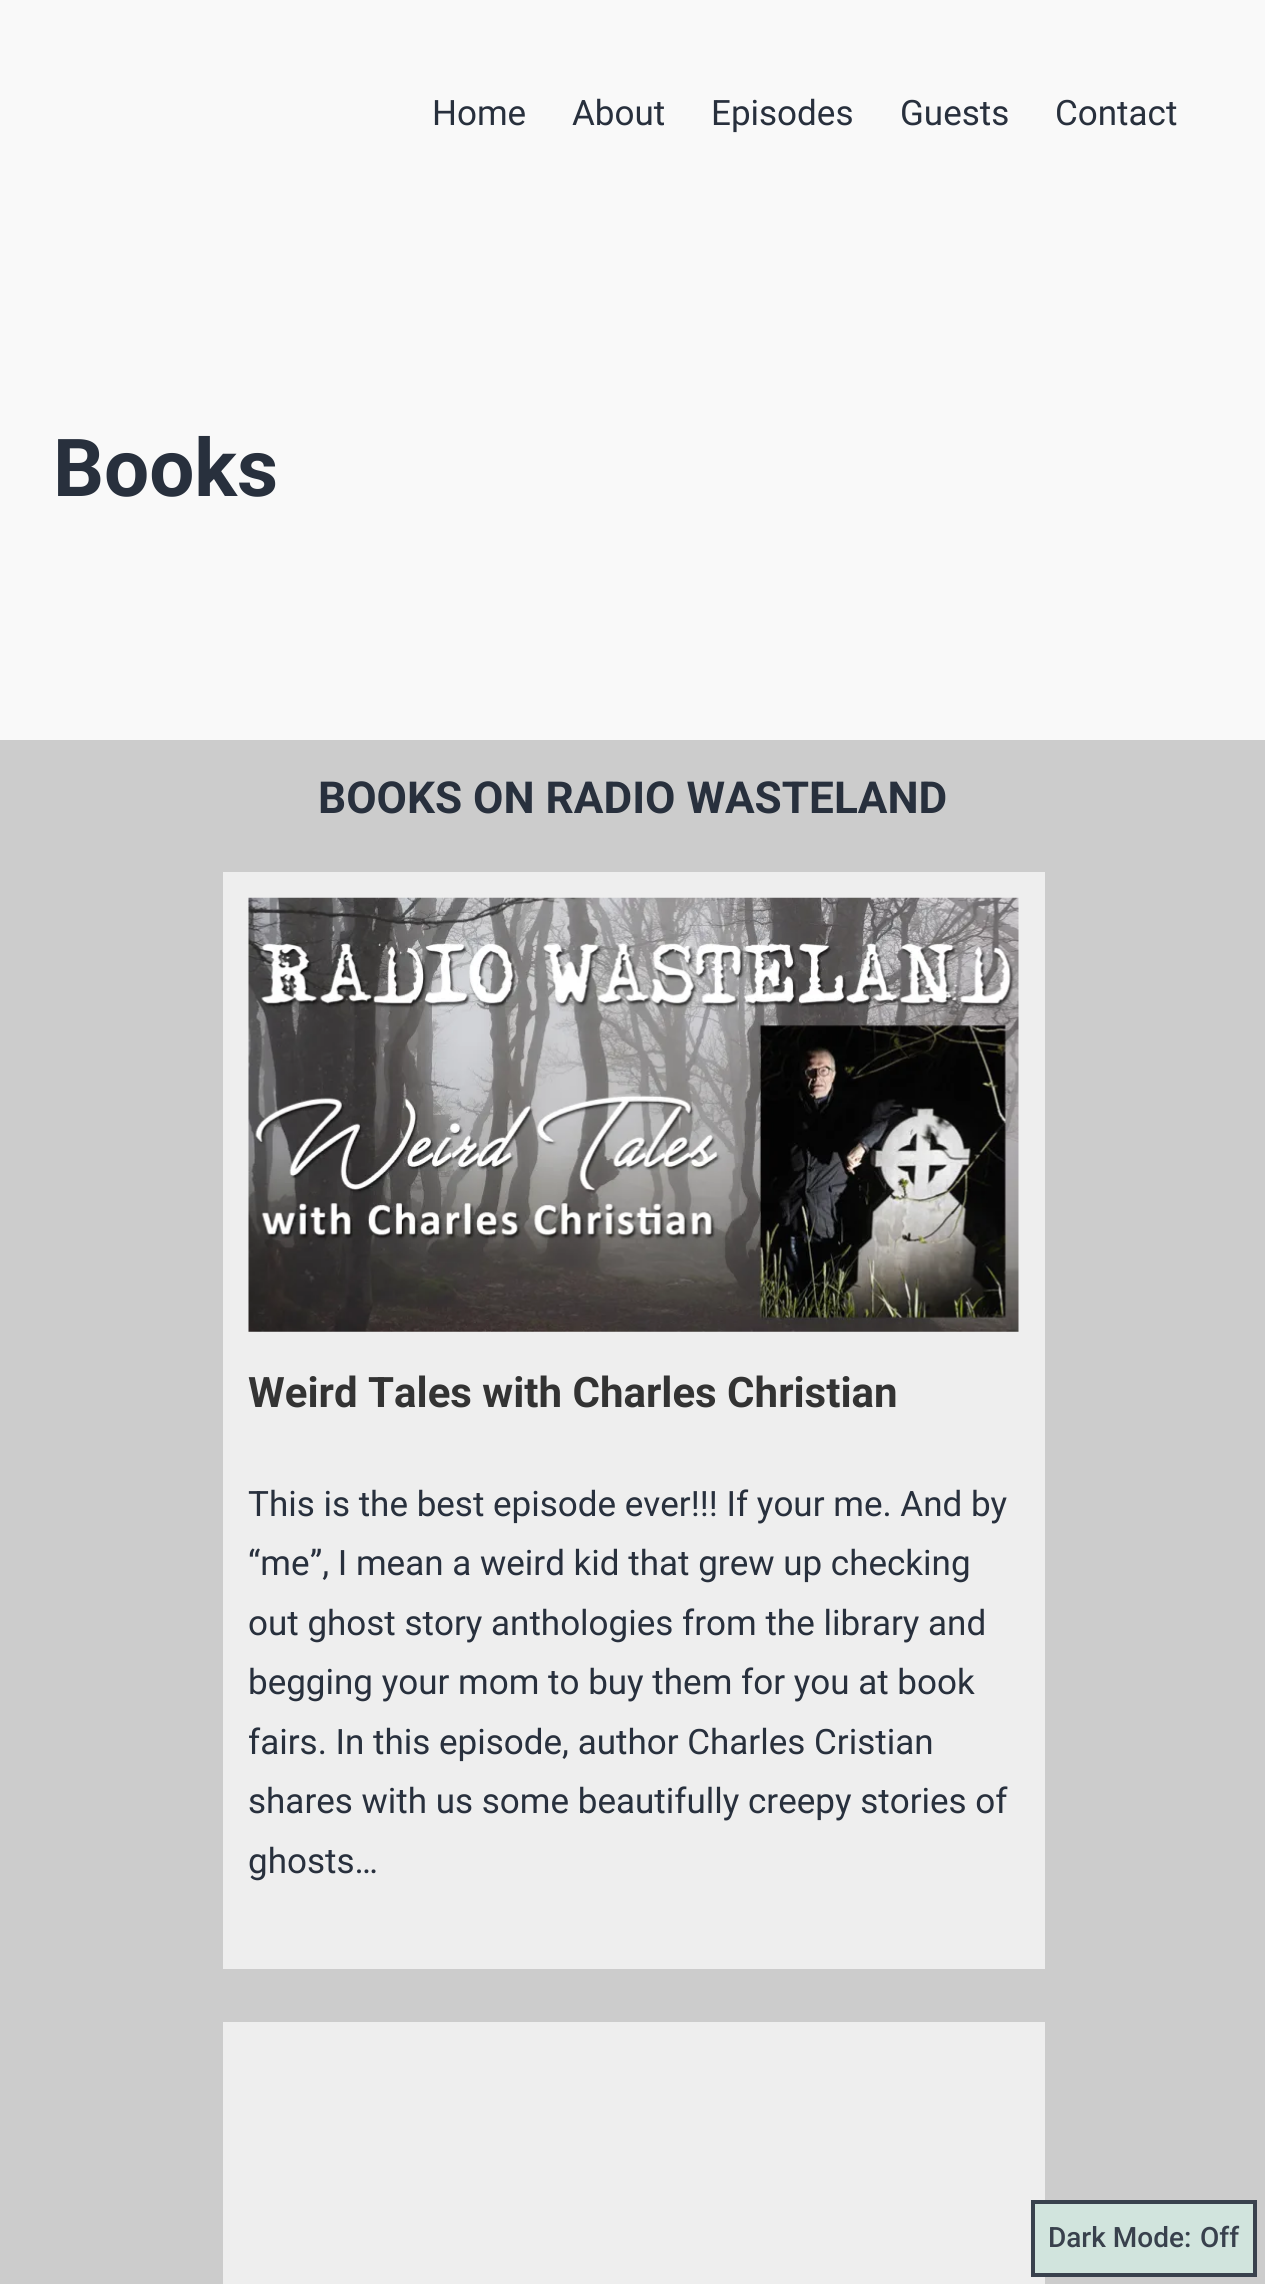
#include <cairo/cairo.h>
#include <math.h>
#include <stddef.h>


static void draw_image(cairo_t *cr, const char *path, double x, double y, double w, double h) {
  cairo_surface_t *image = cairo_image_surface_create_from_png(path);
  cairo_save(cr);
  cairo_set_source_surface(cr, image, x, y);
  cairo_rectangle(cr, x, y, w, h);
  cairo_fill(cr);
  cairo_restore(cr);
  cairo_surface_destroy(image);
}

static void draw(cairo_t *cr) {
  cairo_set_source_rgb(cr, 249 / 255.0, 249 / 255.0, 249 / 255.0);
  cairo_paint(cr);
  cairo_set_source_rgb(cr, 204 / 255.0, 204 / 255.0, 204 / 255.0);
  cairo_rectangle(cr, 0, 740, 1265, 1544);
  cairo_fill(cr);
  cairo_set_source_rgb(cr, 238 / 255.0, 238 / 255.0, 238 / 255.0);
  cairo_rectangle(cr, 223, 872, 822, 1097);
  cairo_fill(cr);
  draw_image(cr, "images/1.png", 248, 897, 771, 435);
  cairo_rectangle(cr, 223, 2022, 822, 262);
  cairo_fill(cr);
  cairo_set_source_rgb(cr, 209 / 255.0, 228 / 255.0, 221 / 255.0);
  cairo_rectangle(cr, 1033, 2202, 222, 73);
  cairo_fill_preserve(cr);
  cairo_set_source_rgb(cr, 57 / 255.0, 65 / 255.0, 77 / 255.0);
  cairo_set_line_width(cr, 4);
  cairo_stroke(cr);
  cairo_select_font_face(cr, "Roboto", CAIRO_FONT_SLANT_NORMAL, CAIRO_FONT_WEIGHT_NORMAL);
  cairo_set_font_size(cr, 35);
  cairo_set_source_rgb(cr, 40 / 255.0, 48 / 255.0, 61 / 255.0);
  cairo_move_to(cr, 432, 125);
  cairo_show_text(cr, "Home");
  cairo_move_to(cr, 572, 125);
  cairo_show_text(cr, "About");
  cairo_move_to(cr, 711, 125);
  cairo_show_text(cr, "Episodes");
  cairo_move_to(cr, 900, 125);
  cairo_show_text(cr, "Guests");
  cairo_move_to(cr, 1055, 125);
  cairo_show_text(cr, "Contact");
  cairo_select_font_face(cr, "Roboto", CAIRO_FONT_SLANT_NORMAL, CAIRO_FONT_WEIGHT_BOLD);
  cairo_set_font_size(cr, 80);
  cairo_move_to(cr, 53, 496);
  cairo_show_text(cr, "Books");
  cairo_set_font_size(cr, 44.1);
  cairo_move_to(cr, 318, 813);
  cairo_show_text(cr, "BOOKS ON RADIO WASTELAND");
  cairo_set_font_size(cr, 42);
  cairo_set_source_rgb(cr, 51 / 255.0, 51 / 255.0, 51 / 255.0);
  cairo_move_to(cr, 248, 1407);
  cairo_show_text(cr, "Weird Tales with Charles Christian");
  cairo_select_font_face(cr, "Roboto", CAIRO_FONT_SLANT_NORMAL, CAIRO_FONT_WEIGHT_NORMAL);
  cairo_set_font_size(cr, 35);
  cairo_set_source_rgb(cr, 40 / 255.0, 48 / 255.0, 61 / 255.0);
  cairo_move_to(cr, 248, 1516);
  cairo_show_text(cr, "This is the best episode ever!!! If your me. And by");
  cairo_move_to(cr, 248, 1575);
  cairo_show_text(cr, "“me”, I mean a weird kid that grew up checking");
  cairo_move_to(cr, 248, 1635);
  cairo_show_text(cr, "out ghost story anthologies from the library and");
  cairo_move_to(cr, 248, 1694);
  cairo_show_text(cr, "begging your mom to buy them for you at book");
  cairo_move_to(cr, 248, 1754);
  cairo_show_text(cr, "fairs. In this episode, author Charles Cristian");
  cairo_move_to(cr, 248, 1813);
  cairo_show_text(cr, "shares with us some beautifully creepy stories of");
  cairo_move_to(cr, 248, 1873);
  cairo_show_text(cr, "ghosts…");
  cairo_select_font_face(cr, "Roboto Medium", CAIRO_FONT_SLANT_NORMAL, CAIRO_FONT_WEIGHT_NORMAL);
  cairo_set_font_size(cr, 28);
  cairo_set_source_rgb(cr, 57 / 255.0, 65 / 255.0, 77 / 255.0);
  cairo_move_to(cr, 1048, 2247);
  cairo_show_text(cr, "Dark Mode:");
  cairo_move_to(cr, 1200, 2247);
  cairo_show_text(cr, "Off");
}

int main(void) {
  cairo_surface_t *surface = cairo_image_surface_create(CAIRO_FORMAT_RGB24, 1265, 2284);
  cairo_t *cr = cairo_create(surface);
  cairo_font_options_t *options = cairo_font_options_create();
  cairo_font_options_set_hint_metrics(options, CAIRO_HINT_METRICS_OFF);
  cairo_font_options_set_hint_style(options, CAIRO_HINT_STYLE_NONE);
  cairo_set_font_options(cr, options);
  cairo_set_miter_limit(cr, 4);
  draw(cr);
  cairo_surface_write_to_png(surface, "out.png");
  cairo_font_options_destroy(options);
  cairo_destroy(cr);
  cairo_surface_destroy(surface);
  return 0;
}
